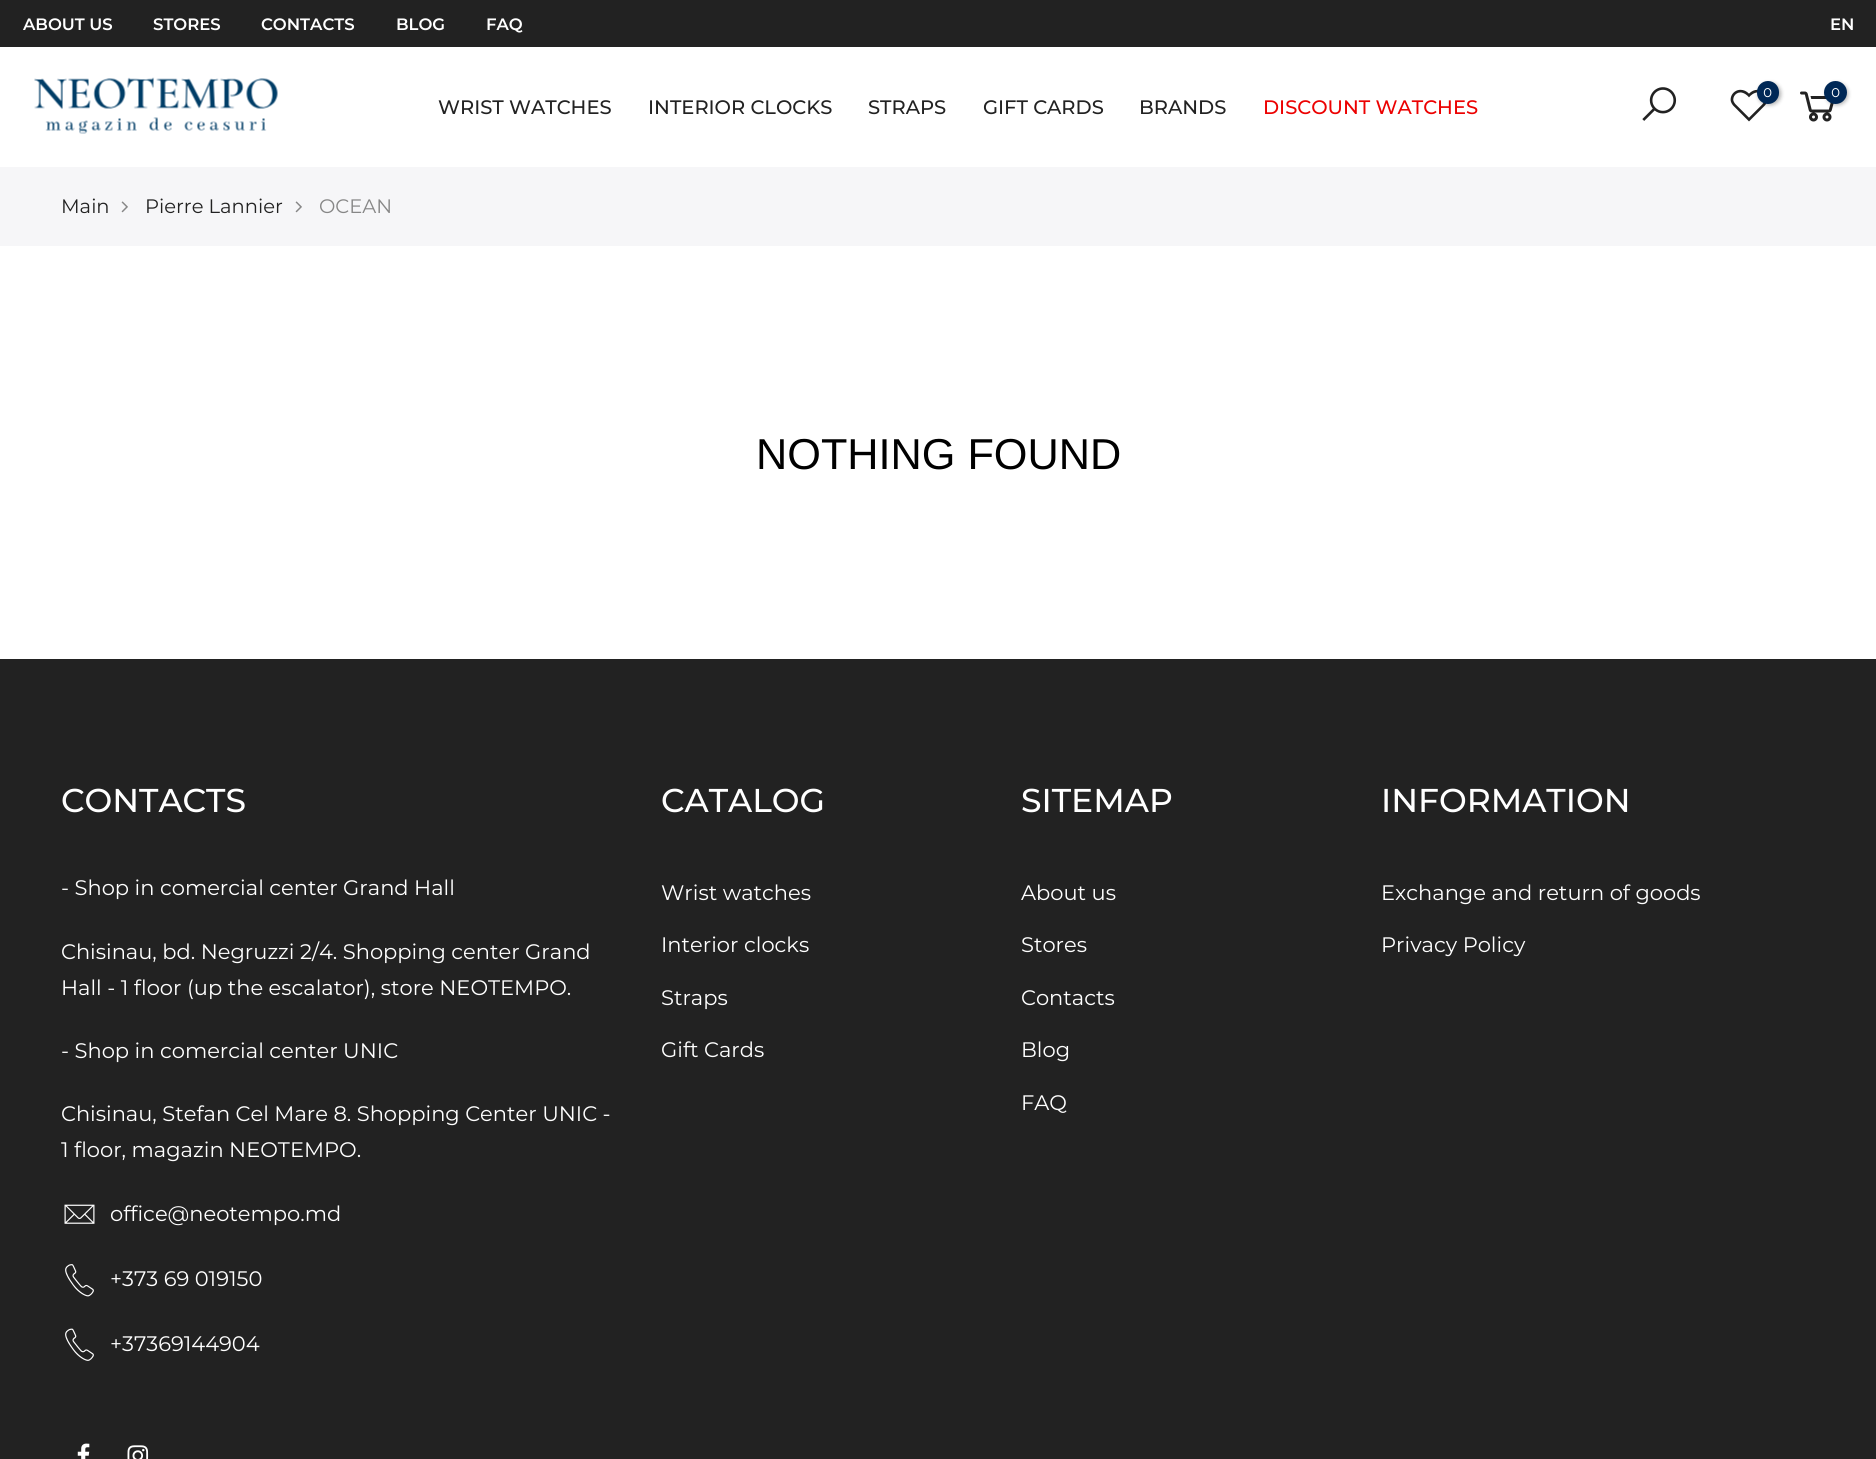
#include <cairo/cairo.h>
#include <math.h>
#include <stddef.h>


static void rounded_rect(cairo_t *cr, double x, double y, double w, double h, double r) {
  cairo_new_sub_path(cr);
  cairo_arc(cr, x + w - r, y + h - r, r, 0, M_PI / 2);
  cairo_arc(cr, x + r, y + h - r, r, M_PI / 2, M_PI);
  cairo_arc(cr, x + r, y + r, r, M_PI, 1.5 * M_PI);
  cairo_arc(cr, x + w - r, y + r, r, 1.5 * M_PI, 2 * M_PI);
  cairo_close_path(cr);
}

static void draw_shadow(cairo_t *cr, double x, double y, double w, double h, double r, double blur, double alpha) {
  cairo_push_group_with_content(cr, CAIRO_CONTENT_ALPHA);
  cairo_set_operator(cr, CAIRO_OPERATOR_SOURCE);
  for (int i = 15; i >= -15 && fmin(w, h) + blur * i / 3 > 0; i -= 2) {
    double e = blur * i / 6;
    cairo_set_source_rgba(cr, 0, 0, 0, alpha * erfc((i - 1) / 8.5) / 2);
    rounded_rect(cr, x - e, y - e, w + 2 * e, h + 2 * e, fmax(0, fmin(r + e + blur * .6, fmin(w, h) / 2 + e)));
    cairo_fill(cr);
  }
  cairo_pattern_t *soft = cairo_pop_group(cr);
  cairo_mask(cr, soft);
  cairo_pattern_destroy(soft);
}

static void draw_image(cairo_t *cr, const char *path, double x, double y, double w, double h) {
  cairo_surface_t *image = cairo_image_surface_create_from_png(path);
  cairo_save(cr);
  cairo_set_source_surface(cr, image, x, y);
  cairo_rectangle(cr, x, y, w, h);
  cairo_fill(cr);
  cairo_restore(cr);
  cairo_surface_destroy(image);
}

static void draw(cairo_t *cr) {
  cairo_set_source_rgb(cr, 1, 1, 1);
  cairo_paint(cr);
  cairo_set_source_rgb(cr, 34 / 255.0, 34 / 255.0, 34 / 255.0);
  cairo_rectangle(cr, 0, 0, 1876, 47);
  cairo_fill(cr);
  draw_image(cr, "images/1.png", 34, 77, 244, 57);
  draw_image(cr, "images/2.png", 1642, 87, 35, 34);
  draw_image(cr, "images/3.png", 1730, 89, 37, 33);
  cairo_set_source_rgb(cr, 0, 0, 0);
  draw_shadow(cr, 1758, 83, 23, 22, 11, 2, 0.3);
  cairo_set_source_rgb(cr, 0, 40 / 255.0, 86 / 255.0);
  rounded_rect(cr, 1757, 81, 22, 23, 11);
  cairo_fill(cr);
  draw_image(cr, "images/4.png", 1800, 91, 34, 31);
  cairo_set_source_rgb(cr, 0, 0, 0);
  draw_shadow(cr, 1826, 83, 22, 22, 11, 2, 0.3);
  cairo_set_source_rgb(cr, 0, 40 / 255.0, 86 / 255.0);
  cairo_arc(cr, 1835.5, 92.5, 11.5, 0, 2 * M_PI);
  cairo_fill(cr);
  cairo_set_source_rgb(cr, 246 / 255.0, 246 / 255.0, 248 / 255.0);
  cairo_rectangle(cr, 0, 167, 1876, 79);
  cairo_fill(cr);
  draw_image(cr, "images/5.png", 121, 201, 7, 12);
  draw_image(cr, "images/5.png", 295, 201, 7, 12);
  cairo_set_source_rgb(cr, 34 / 255.0, 34 / 255.0, 34 / 255.0);
  cairo_rectangle(cr, 0, 659, 1876, 800);
  cairo_fill(cr);
  draw_image(cr, "images/6.png", 64, 1204, 31, 20);
  draw_image(cr, "images/7.png", 65, 1264, 29, 33);
  draw_image(cr, "images/8.png", 65, 1328, 29, 33);
  draw_image(cr, "images/9.png", 77, 1443, 13, 16);
  draw_image(cr, "images/10.png", 127, 1445, 22, 14);
  cairo_select_font_face(cr, "Montserrat SemiBold", CAIRO_FONT_SLANT_NORMAL, CAIRO_FONT_WEIGHT_NORMAL);
  cairo_set_font_size(cr, 16.5);
  cairo_set_source_rgb(cr, 1, 1, 1);
  cairo_move_to(cr, 23, 30);
  cairo_show_text(cr, "ABOUT US");
  cairo_move_to(cr, 153, 30);
  cairo_show_text(cr, "STORES");
  cairo_move_to(cr, 261, 30);
  cairo_show_text(cr, "CONTACTS");
  cairo_move_to(cr, 396, 30);
  cairo_show_text(cr, "BLOG");
  cairo_move_to(cr, 486, 30);
  cairo_show_text(cr, "FAQ");
  cairo_move_to(cr, 1830, 30);
  cairo_show_text(cr, "EN");
  cairo_select_font_face(cr, "Raleway", CAIRO_FONT_SLANT_NORMAL, CAIRO_FONT_WEIGHT_NORMAL);
  cairo_set_font_size(cr, 15);
  cairo_move_to(cr, 1763, 97);
  cairo_show_text(cr, "0");
  cairo_move_to(cr, 1831, 97);
  cairo_show_text(cr, "0");
  cairo_select_font_face(cr, "Montserrat Medium", CAIRO_FONT_SLANT_NORMAL, CAIRO_FONT_WEIGHT_NORMAL);
  cairo_set_font_size(cr, 19.5);
  cairo_set_source_rgb(cr, 34 / 255.0, 34 / 255.0, 34 / 255.0);
  cairo_move_to(cr, 438, 114);
  cairo_show_text(cr, "WRIST WATCHES");
  cairo_move_to(cr, 648, 114);
  cairo_show_text(cr, "INTERIOR CLOCKS");
  cairo_move_to(cr, 868, 114);
  cairo_show_text(cr, "STRAPS");
  cairo_move_to(cr, 983, 114);
  cairo_show_text(cr, "GIFT CARDS");
  cairo_move_to(cr, 1139, 114);
  cairo_show_text(cr, "BRANDS");
  cairo_set_source_rgb(cr, 236 / 255.0, 1 / 255.0, 1 / 255.0);
  cairo_move_to(cr, 1263, 114);
  cairo_show_text(cr, "DISCOUNT WATCHES");
  cairo_select_font_face(cr, "Montserrat", CAIRO_FONT_SLANT_NORMAL, CAIRO_FONT_WEIGHT_NORMAL);
  cairo_set_source_rgb(cr, 34 / 255.0, 34 / 255.0, 34 / 255.0);
  cairo_move_to(cr, 61, 213);
  cairo_show_text(cr, "Main");
  cairo_move_to(cr, 145, 213);
  cairo_show_text(cr, "Pierre Lannier");
  cairo_set_source_rgb(cr, 135 / 255.0, 135 / 255.0, 135 / 255.0);
  cairo_move_to(cr, 319, 213);
  cairo_show_text(cr, "OCEAN");
  cairo_select_font_face(cr, "Liberation Sans", CAIRO_FONT_SLANT_NORMAL, CAIRO_FONT_WEIGHT_NORMAL);
  cairo_set_font_size(cr, 43.25);
  cairo_set_source_rgb(cr, 0, 0, 0);
  cairo_move_to(cr, 756, 469);
  cairo_show_text(cr, "NOTHING FOUND");
  cairo_select_font_face(cr, "Montserrat Medium", CAIRO_FONT_SLANT_NORMAL, CAIRO_FONT_WEIGHT_NORMAL);
  cairo_set_font_size(cr, 33);
  cairo_set_source_rgb(cr, 1, 1, 1);
  cairo_move_to(cr, 61, 812);
  cairo_show_text(cr, "CONTACTS");
  cairo_select_font_face(cr, "Montserrat", CAIRO_FONT_SLANT_NORMAL, CAIRO_FONT_WEIGHT_NORMAL);
  cairo_set_font_size(cr, 21);
  cairo_move_to(cr, 61, 895);
  cairo_show_text(cr, "- Shop in comercial center Grand Hall");
  cairo_move_to(cr, 61, 959);
  cairo_show_text(cr, "Chisinau, bd. Negruzzi 2/4. Shopping center Grand");
  cairo_move_to(cr, 61, 995);
  cairo_show_text(cr, "Hall - 1 floor (up the escalator), store NEOTEMPO.");
  cairo_move_to(cr, 61, 1058);
  cairo_show_text(cr, "- Shop in comercial center UNIC");
  cairo_move_to(cr, 61, 1121);
  cairo_show_text(cr, "Chisinau, Stefan Cel Mare 8. Shopping Center UNIC -");
  cairo_move_to(cr, 61, 1157);
  cairo_show_text(cr, "1 floor, magazin NEOTEMPO.");
  cairo_move_to(cr, 110, 1221);
  cairo_show_text(cr, "office@neotempo.md");
  cairo_move_to(cr, 110, 1286);
  cairo_show_text(cr, "+373 69 019150");
  cairo_move_to(cr, 110, 1351);
  cairo_show_text(cr, "+37369144904");
  cairo_select_font_face(cr, "Montserrat Medium", CAIRO_FONT_SLANT_NORMAL, CAIRO_FONT_WEIGHT_NORMAL);
  cairo_set_font_size(cr, 33);
  cairo_move_to(cr, 661, 812);
  cairo_show_text(cr, "CATALOG");
  cairo_select_font_face(cr, "Montserrat", CAIRO_FONT_SLANT_NORMAL, CAIRO_FONT_WEIGHT_NORMAL);
  cairo_set_font_size(cr, 21);
  cairo_move_to(cr, 661, 900);
  cairo_show_text(cr, "Wrist watches");
  cairo_move_to(cr, 661, 952);
  cairo_show_text(cr, "Interior clocks");
  cairo_move_to(cr, 661, 1005);
  cairo_show_text(cr, "Straps");
  cairo_move_to(cr, 661, 1057);
  cairo_show_text(cr, "Gift Cards");
  cairo_select_font_face(cr, "Montserrat Medium", CAIRO_FONT_SLANT_NORMAL, CAIRO_FONT_WEIGHT_NORMAL);
  cairo_set_font_size(cr, 33);
  cairo_move_to(cr, 1021, 812);
  cairo_show_text(cr, "SITEMAP");
  cairo_select_font_face(cr, "Montserrat", CAIRO_FONT_SLANT_NORMAL, CAIRO_FONT_WEIGHT_NORMAL);
  cairo_set_font_size(cr, 21);
  cairo_move_to(cr, 1021, 900);
  cairo_show_text(cr, "About us");
  cairo_move_to(cr, 1021, 952);
  cairo_show_text(cr, "Stores");
  cairo_move_to(cr, 1021, 1005);
  cairo_show_text(cr, "Contacts");
  cairo_move_to(cr, 1021, 1057);
  cairo_show_text(cr, "Blog");
  cairo_move_to(cr, 1021, 1110);
  cairo_show_text(cr, "FAQ");
  cairo_select_font_face(cr, "Montserrat Medium", CAIRO_FONT_SLANT_NORMAL, CAIRO_FONT_WEIGHT_NORMAL);
  cairo_set_font_size(cr, 33);
  cairo_move_to(cr, 1381, 812);
  cairo_show_text(cr, "INFORMATION");
  cairo_select_font_face(cr, "Montserrat", CAIRO_FONT_SLANT_NORMAL, CAIRO_FONT_WEIGHT_NORMAL);
  cairo_set_font_size(cr, 21);
  cairo_move_to(cr, 1381, 900);
  cairo_show_text(cr, "Exchange and return of goods");
  cairo_move_to(cr, 1381, 952);
  cairo_show_text(cr, "Privacy Policy");
}

int main(void) {
  cairo_surface_t *surface = cairo_image_surface_create(CAIRO_FORMAT_RGB24, 1876, 1459);
  cairo_t *cr = cairo_create(surface);
  cairo_font_options_t *options = cairo_font_options_create();
  cairo_font_options_set_hint_metrics(options, CAIRO_HINT_METRICS_OFF);
  cairo_font_options_set_hint_style(options, CAIRO_HINT_STYLE_NONE);
  cairo_set_font_options(cr, options);
  cairo_set_miter_limit(cr, 4);
  draw(cr);
  cairo_surface_write_to_png(surface, "out.png");
  cairo_font_options_destroy(options);
  cairo_destroy(cr);
  cairo_surface_destroy(surface);
  return 0;
}
